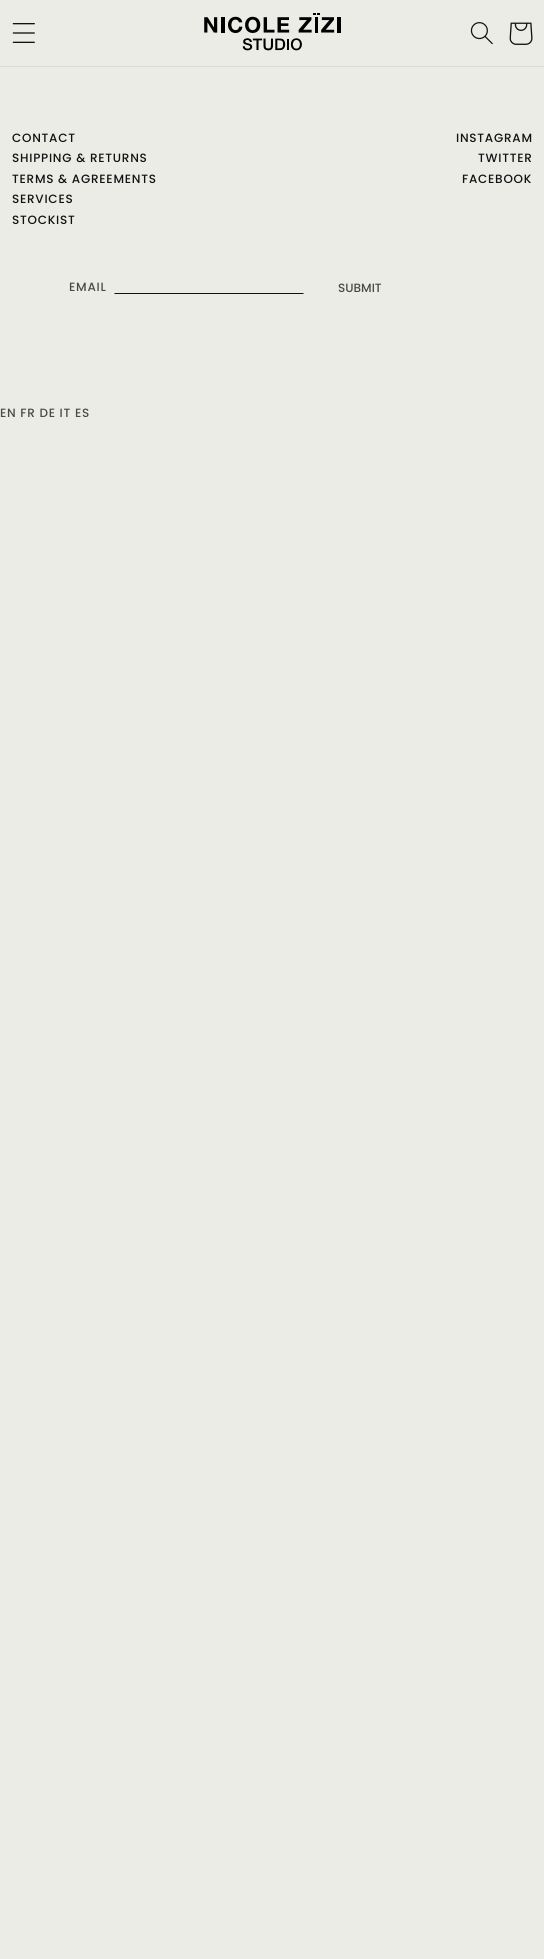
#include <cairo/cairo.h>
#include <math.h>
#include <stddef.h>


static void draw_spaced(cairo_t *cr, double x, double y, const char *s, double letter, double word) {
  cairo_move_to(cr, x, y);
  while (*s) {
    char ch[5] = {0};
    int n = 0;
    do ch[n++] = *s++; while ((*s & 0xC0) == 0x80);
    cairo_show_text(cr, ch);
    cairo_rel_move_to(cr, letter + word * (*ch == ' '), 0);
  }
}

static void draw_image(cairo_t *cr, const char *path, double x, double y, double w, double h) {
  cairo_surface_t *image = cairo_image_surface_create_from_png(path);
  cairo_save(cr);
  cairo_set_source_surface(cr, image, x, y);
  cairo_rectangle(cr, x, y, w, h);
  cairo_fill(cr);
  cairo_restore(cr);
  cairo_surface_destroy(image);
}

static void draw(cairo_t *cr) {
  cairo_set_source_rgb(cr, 236 / 255.0, 236 / 255.0, 231 / 255.0);
  cairo_paint(cr);
  cairo_set_source_rgb(cr, 219 / 255.0, 219 / 255.0, 214 / 255.0);
  cairo_rectangle(cr, 0, 66, 544, 1);
  cairo_fill(cr);
  draw_image(cr, "images/1.png", 12, 23, 23, 20);
  draw_image(cr, "images/2.png", 204, 13, 137, 38);
  draw_image(cr, "images/3.png", 470, 22, 23, 23);
  draw_image(cr, "images/4.png", 509, 22, 24, 23);
  cairo_set_source_rgb(cr, 18 / 255.0, 18 / 255.0, 18 / 255.0);
  cairo_new_path(cr);
  cairo_move_to(cr, 304, 294);
  cairo_line_to(cr, 114, 294);
  cairo_line_to(cr, 115, 293);
  cairo_line_to(cr, 303, 293);
  cairo_close_path(cr);
  cairo_fill(cr);
  cairo_select_font_face(cr, "Poppins Medium", CAIRO_FONT_SLANT_NORMAL, CAIRO_FONT_WEIGHT_NORMAL);
  cairo_set_font_size(cr, 12);
  draw_spaced(cr, 12, 142, "CONTACT", 0.75, 0);
  draw_spaced(cr, 12, 162, "SHIPPING & RETURNS", 0.75, 0);
  draw_spaced(cr, 12, 183, "TERMS & AGREEMENTS", 0.75, 0);
  draw_spaced(cr, 12, 203, "SERVICES", 0.75, 0);
  draw_spaced(cr, 12, 224, "STOCKIST", 0.75, 0);
  draw_spaced(cr, 456, 142, "INSTAGRAM", 0.75, 0);
  draw_spaced(cr, 478, 162, "TWITTER", 0.75, 0);
  draw_spaced(cr, 462, 183, "FACEBOOK", 0.75, 0);
  cairo_set_source_rgb(cr, 73 / 255.0, 73 / 255.0, 71 / 255.0);
  draw_spaced(cr, 69, 291, "EMAIL", 0.75, 0);
  cairo_move_to(cr, 338, 292);
  cairo_show_text(cr, "SUBMIT");
  draw_spaced(cr, 0, 417, "EN FR DE IT ES", 0.75, 0);
}

int main(void) {
  cairo_surface_t *surface = cairo_image_surface_create(CAIRO_FORMAT_RGB24, 544, 1959);
  cairo_t *cr = cairo_create(surface);
  cairo_font_options_t *options = cairo_font_options_create();
  cairo_font_options_set_hint_metrics(options, CAIRO_HINT_METRICS_OFF);
  cairo_font_options_set_hint_style(options, CAIRO_HINT_STYLE_NONE);
  cairo_set_font_options(cr, options);
  cairo_set_miter_limit(cr, 4);
  draw(cr);
  cairo_surface_write_to_png(surface, "out.png");
  cairo_font_options_destroy(options);
  cairo_destroy(cr);
  cairo_surface_destroy(surface);
  return 0;
}
